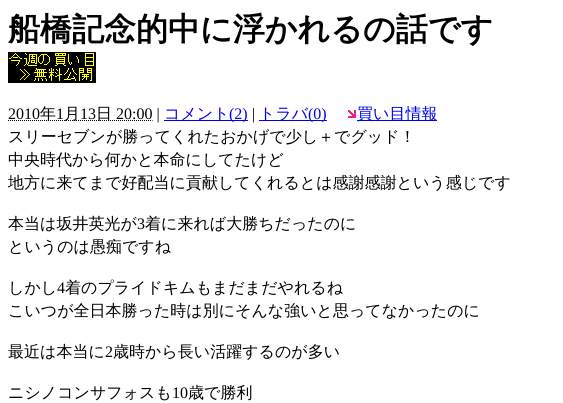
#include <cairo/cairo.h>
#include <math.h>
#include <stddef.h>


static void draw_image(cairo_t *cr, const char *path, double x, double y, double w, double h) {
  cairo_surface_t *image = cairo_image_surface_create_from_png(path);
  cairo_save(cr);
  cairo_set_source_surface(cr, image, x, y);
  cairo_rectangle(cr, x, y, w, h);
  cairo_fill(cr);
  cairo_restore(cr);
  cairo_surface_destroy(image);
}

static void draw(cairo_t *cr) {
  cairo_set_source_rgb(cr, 1, 1, 1);
  cairo_paint(cr);
  draw_image(cr, "images/1.png", 8, 52, 88, 31);
  cairo_new_path(cr);
  cairo_move_to(cr, 8, 120.5);
  cairo_line_to(cr, 152.5, 120.5);
  cairo_set_source_rgb(cr, 0, 0, 0);
  cairo_set_line_width(cr, 1);
  cairo_set_dash(cr, (double[]){1, 1}, 2, 0);
  cairo_stroke(cr);
  cairo_set_source_rgb(cr, 0, 0, 238 / 255.0);
  cairo_rectangle(cr, 164, 120, 84, 1);
  cairo_fill(cr);
  cairo_rectangle(cr, 259, 120, 68, 1);
  cairo_fill(cr);
  draw_image(cr, "images/2.png", 348, 110, 8, 8);
  cairo_rectangle(cr, 357, 120, 80, 1);
  cairo_fill(cr);
  cairo_select_font_face(cr, "WenQuanYi Zen Hei", CAIRO_FONT_SLANT_NORMAL, CAIRO_FONT_WEIGHT_BOLD);
  cairo_set_font_size(cr, 32);
  cairo_set_source_rgb(cr, 0, 0, 0);
  cairo_move_to(cr, 8, 40);
  cairo_show_text(cr, "船橋記念的中に浮かれるの話です");
  cairo_select_font_face(cr, "Liberation Serif", CAIRO_FONT_SLANT_NORMAL, CAIRO_FONT_WEIGHT_NORMAL);
  cairo_set_font_size(cr, 16);
  cairo_move_to(cr, 8, 119);
  cairo_show_text(cr, "2010");
  cairo_select_font_face(cr, "WenQuanYi Zen Hei Medium", CAIRO_FONT_SLANT_NORMAL, CAIRO_FONT_WEIGHT_NORMAL);
  cairo_move_to(cr, 40, 119);
  cairo_show_text(cr, "年");
  cairo_select_font_face(cr, "Liberation Serif", CAIRO_FONT_SLANT_NORMAL, CAIRO_FONT_WEIGHT_NORMAL);
  cairo_move_to(cr, 56, 119);
  cairo_show_text(cr, "1");
  cairo_select_font_face(cr, "WenQuanYi Zen Hei Medium", CAIRO_FONT_SLANT_NORMAL, CAIRO_FONT_WEIGHT_NORMAL);
  cairo_move_to(cr, 64, 119);
  cairo_show_text(cr, "月");
  cairo_select_font_face(cr, "Liberation Serif", CAIRO_FONT_SLANT_NORMAL, CAIRO_FONT_WEIGHT_NORMAL);
  cairo_move_to(cr, 80, 119);
  cairo_show_text(cr, "13");
  cairo_select_font_face(cr, "WenQuanYi Zen Hei Medium", CAIRO_FONT_SLANT_NORMAL, CAIRO_FONT_WEIGHT_NORMAL);
  cairo_move_to(cr, 96, 119);
  cairo_show_text(cr, "日");
  cairo_select_font_face(cr, "Liberation Serif", CAIRO_FONT_SLANT_NORMAL, CAIRO_FONT_WEIGHT_NORMAL);
  cairo_move_to(cr, 116, 119);
  cairo_show_text(cr, "20:00 |");
  cairo_select_font_face(cr, "WenQuanYi Zen Hei Medium", CAIRO_FONT_SLANT_NORMAL, CAIRO_FONT_WEIGHT_NORMAL);
  cairo_set_source_rgb(cr, 0, 0, 238 / 255.0);
  cairo_move_to(cr, 164, 119);
  cairo_show_text(cr, "コメント");
  cairo_select_font_face(cr, "Liberation Serif", CAIRO_FONT_SLANT_NORMAL, CAIRO_FONT_WEIGHT_NORMAL);
  cairo_move_to(cr, 229, 119);
  cairo_show_text(cr, "(2)");
  cairo_set_source_rgb(cr, 0, 0, 0);
  cairo_move_to(cr, 252, 119);
  cairo_show_text(cr, "|");
  cairo_select_font_face(cr, "WenQuanYi Zen Hei Medium", CAIRO_FONT_SLANT_NORMAL, CAIRO_FONT_WEIGHT_NORMAL);
  cairo_set_source_rgb(cr, 0, 0, 238 / 255.0);
  cairo_move_to(cr, 259, 119);
  cairo_show_text(cr, "トラバ");
  cairo_select_font_face(cr, "Liberation Serif", CAIRO_FONT_SLANT_NORMAL, CAIRO_FONT_WEIGHT_NORMAL);
  cairo_move_to(cr, 308, 119);
  cairo_show_text(cr, "(0)");
  cairo_select_font_face(cr, "WenQuanYi Zen Hei Medium", CAIRO_FONT_SLANT_NORMAL, CAIRO_FONT_WEIGHT_NORMAL);
  cairo_move_to(cr, 357, 119);
  cairo_show_text(cr, "買い目情報");
  cairo_set_source_rgb(cr, 0, 0, 0);
  cairo_move_to(cr, 8, 142);
  cairo_show_text(cr, "スリーセブンが勝ってくれたおかげで少し＋でグッド！");
  cairo_move_to(cr, 8, 165);
  cairo_show_text(cr, "中央時代から何かと本命にしてたけど");
  cairo_move_to(cr, 8, 188);
  cairo_show_text(cr, "地方に来てまで好配当に貢献してくれるとは感謝感謝という感じです");
  cairo_move_to(cr, 8, 229);
  cairo_show_text(cr, "本当は坂井英光が");
  cairo_select_font_face(cr, "Liberation Serif", CAIRO_FONT_SLANT_NORMAL, CAIRO_FONT_WEIGHT_NORMAL);
  cairo_move_to(cr, 137, 229);
  cairo_show_text(cr, "3");
  cairo_select_font_face(cr, "WenQuanYi Zen Hei Medium", CAIRO_FONT_SLANT_NORMAL, CAIRO_FONT_WEIGHT_NORMAL);
  cairo_move_to(cr, 145, 229);
  cairo_show_text(cr, "着に来れば大勝ちだったのに");
  cairo_move_to(cr, 8, 252);
  cairo_show_text(cr, "というのは愚痴ですね");
  cairo_move_to(cr, 8, 293);
  cairo_show_text(cr, "しかし");
  cairo_select_font_face(cr, "Liberation Serif", CAIRO_FONT_SLANT_NORMAL, CAIRO_FONT_WEIGHT_NORMAL);
  cairo_move_to(cr, 57, 293);
  cairo_show_text(cr, "4");
  cairo_select_font_face(cr, "WenQuanYi Zen Hei Medium", CAIRO_FONT_SLANT_NORMAL, CAIRO_FONT_WEIGHT_NORMAL);
  cairo_move_to(cr, 65, 293);
  cairo_show_text(cr, "着のプライドキムもまだまだやれるね");
  cairo_move_to(cr, 8, 316);
  cairo_show_text(cr, "こいつが全日本勝った時は別にそんな強いと思ってなかったのに");
  cairo_move_to(cr, 8, 357);
  cairo_show_text(cr, "最近は本当に");
  cairo_select_font_face(cr, "Liberation Serif", CAIRO_FONT_SLANT_NORMAL, CAIRO_FONT_WEIGHT_NORMAL);
  cairo_move_to(cr, 105, 357);
  cairo_show_text(cr, "2");
  cairo_select_font_face(cr, "WenQuanYi Zen Hei Medium", CAIRO_FONT_SLANT_NORMAL, CAIRO_FONT_WEIGHT_NORMAL);
  cairo_move_to(cr, 113, 357);
  cairo_show_text(cr, "歳時から長い活躍するのが多い");
  cairo_move_to(cr, 8, 398);
  cairo_show_text(cr, "ニシノコンサフォスも");
  cairo_select_font_face(cr, "Liberation Serif", CAIRO_FONT_SLANT_NORMAL, CAIRO_FONT_WEIGHT_NORMAL);
  cairo_move_to(cr, 172, 398);
  cairo_show_text(cr, "10");
  cairo_select_font_face(cr, "WenQuanYi Zen Hei Medium", CAIRO_FONT_SLANT_NORMAL, CAIRO_FONT_WEIGHT_NORMAL);
  cairo_move_to(cr, 188, 398);
  cairo_show_text(cr, "歳で勝利");
}

int main(void) {
  cairo_surface_t *surface = cairo_image_surface_create(CAIRO_FORMAT_RGB24, 563, 403);
  cairo_t *cr = cairo_create(surface);
  cairo_font_options_t *options = cairo_font_options_create();
  cairo_font_options_set_hint_metrics(options, CAIRO_HINT_METRICS_OFF);
  cairo_font_options_set_hint_style(options, CAIRO_HINT_STYLE_NONE);
  cairo_set_font_options(cr, options);
  cairo_set_miter_limit(cr, 4);
  draw(cr);
  cairo_surface_write_to_png(surface, "out.png");
  cairo_font_options_destroy(options);
  cairo_destroy(cr);
  cairo_surface_destroy(surface);
  return 0;
}
